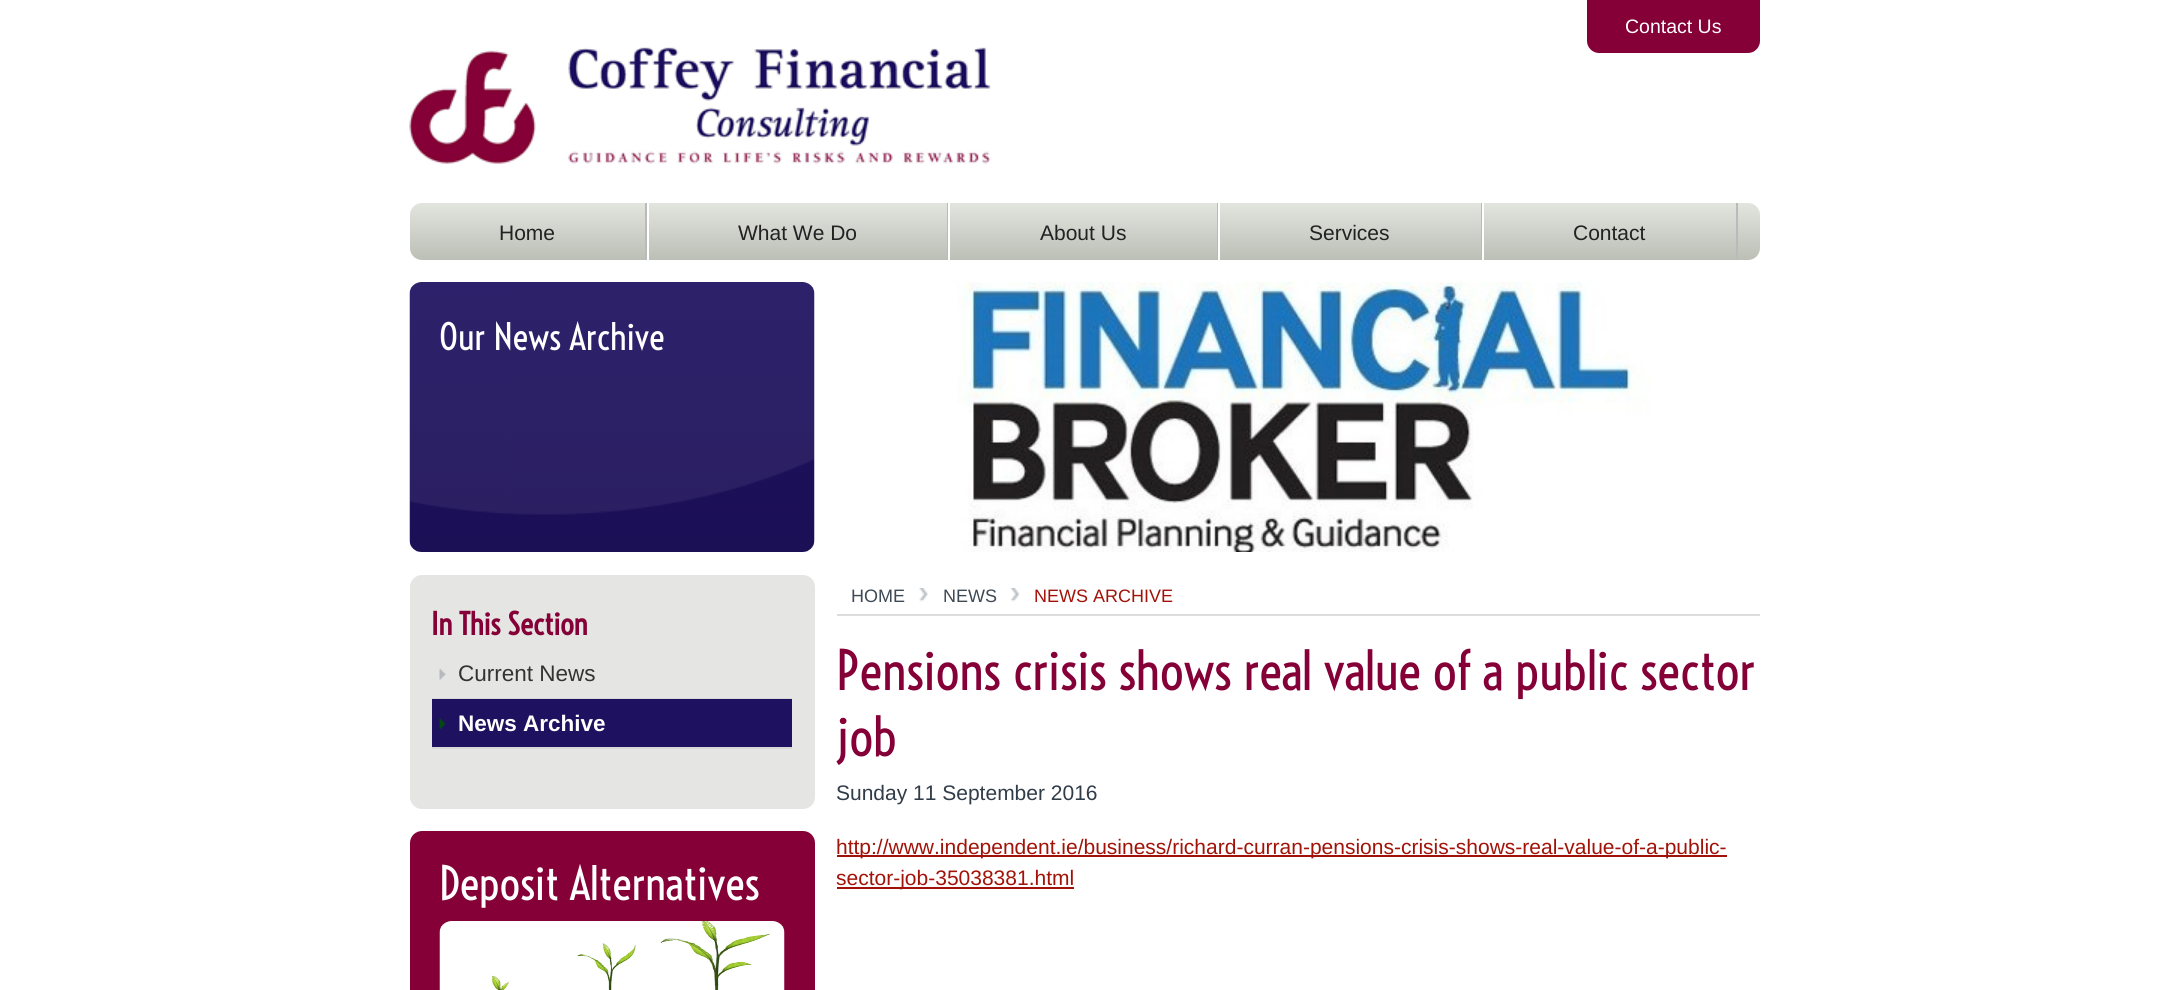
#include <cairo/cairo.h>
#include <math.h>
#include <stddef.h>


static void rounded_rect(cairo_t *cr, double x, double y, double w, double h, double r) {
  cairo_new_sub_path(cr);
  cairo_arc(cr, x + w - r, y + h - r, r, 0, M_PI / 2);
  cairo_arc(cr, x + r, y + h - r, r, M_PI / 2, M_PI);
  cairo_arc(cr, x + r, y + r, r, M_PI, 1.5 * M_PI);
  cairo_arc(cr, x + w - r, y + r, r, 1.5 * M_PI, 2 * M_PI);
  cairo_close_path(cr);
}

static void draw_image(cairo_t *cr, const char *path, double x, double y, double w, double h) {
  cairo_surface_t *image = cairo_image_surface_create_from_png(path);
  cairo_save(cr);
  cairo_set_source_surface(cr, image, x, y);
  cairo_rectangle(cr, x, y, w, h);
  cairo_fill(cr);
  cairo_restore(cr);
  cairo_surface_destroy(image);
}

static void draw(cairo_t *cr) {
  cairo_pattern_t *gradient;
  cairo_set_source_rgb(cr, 1, 1, 1);
  cairo_paint(cr);
  cairo_set_source_rgb(cr, 133 / 255.0, 0, 55 / 255.0);
  cairo_new_path(cr);
  cairo_move_to(cr, 1587, 0);
  cairo_line_to(cr, 1760, 0);
  cairo_line_to(cr, 1760, 41);
  cairo_curve_to(cr, 1760, 47.5, 1754.5, 53, 1748, 53);
  cairo_line_to(cr, 1599, 53);
  cairo_curve_to(cr, 1592.5, 53, 1587, 47.5, 1587, 41);
  cairo_close_path(cr);
  cairo_fill(cr);
  draw_image(cr, "images/1.png", 409, 47, 582, 117);
  gradient = cairo_pattern_create_linear(1085, 202, 1085, 260);
  cairo_pattern_add_color_stop_rgba(gradient, 0, 227 / 255.0, 229 / 255.0, 223 / 255.0, 1);
  cairo_pattern_add_color_stop_rgba(gradient, 1, 188 / 255.0, 191 / 255.0, 182 / 255.0, 1);
  cairo_set_source(cr, gradient);
  cairo_pattern_destroy(gradient);
  rounded_rect(cr, 410, 203, 1350, 57, 12);
  cairo_fill(cr);
  cairo_set_source_rgb(cr, 186 / 255.0, 186 / 255.0, 186 / 255.0);
  cairo_rectangle(cr, 645, 203, 2, 57);
  cairo_fill(cr);
  cairo_rectangle(cr, 947, 203, 1, 57);
  cairo_fill(cr);
  cairo_set_source_rgb(cr, 1, 1, 1);
  cairo_rectangle(cr, 647, 203, 2, 57);
  cairo_fill(cr);
  cairo_set_source_rgb(cr, 186 / 255.0, 186 / 255.0, 186 / 255.0);
  cairo_rectangle(cr, 1217, 203, 1, 57);
  cairo_fill(cr);
  cairo_set_source_rgb(cr, 1, 1, 1);
  cairo_rectangle(cr, 948, 203, 2, 57);
  cairo_fill(cr);
  cairo_set_source_rgb(cr, 186 / 255.0, 186 / 255.0, 186 / 255.0);
  cairo_rectangle(cr, 1481, 203, 1, 57);
  cairo_fill(cr);
  cairo_set_source_rgb(cr, 1, 1, 1);
  cairo_rectangle(cr, 1218, 203, 2, 57);
  cairo_fill(cr);
  cairo_set_source_rgb(cr, 186 / 255.0, 186 / 255.0, 186 / 255.0);
  cairo_rectangle(cr, 1736, 203, 2, 57);
  cairo_fill(cr);
  cairo_set_source_rgb(cr, 1, 1, 1);
  cairo_rectangle(cr, 1482, 203, 2, 57);
  cairo_fill(cr);
  draw_image(cr, "images/2.png", 409, 282, 406, 270);
  draw_image(cr, "images/3.png", 957, 282, 694, 270);
  cairo_set_source_rgb(cr, 229 / 255.0, 229 / 255.0, 227 / 255.0);
  rounded_rect(cr, 410, 575, 405, 234, 12);
  cairo_fill(cr);
  draw_image(cr, "images/4.png", 439, 668, 7, 12);
  cairo_set_source_rgb(cr, 215 / 255.0, 215 / 255.0, 215 / 255.0);
  cairo_rectangle(cr, 432, 698, 360, 1);
  cairo_fill(cr);
  cairo_set_source_rgb(cr, 30 / 255.0, 17 / 255.0, 96 / 255.0);
  cairo_rectangle(cr, 432, 699, 360, 48);
  cairo_fill(cr);
  draw_image(cr, "images/5.png", 439, 718, 7, 12);
  cairo_set_source_rgb(cr, 215 / 255.0, 215 / 255.0, 215 / 255.0);
  cairo_rectangle(cr, 432, 747, 360, 2);
  cairo_fill(cr);
  cairo_set_source_rgb(cr, 133 / 255.0, 0, 55 / 255.0);
  rounded_rect(cr, 410, 831, 405, 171, 12);
  cairo_fill(cr);
  draw_image(cr, "images/6.png", 439, 921, 346, 69);
  cairo_set_source_rgb(cr, 221 / 255.0, 221 / 255.0, 221 / 255.0);
  cairo_rectangle(cr, 837, 614, 923, 2);
  cairo_fill(cr);
  draw_image(cr, "images/7.png", 919, 588, 9, 14);
  draw_image(cr, "images/8.png", 1011, 588, 9, 14);
  cairo_set_source_rgb(cr, 161 / 255.0, 19 / 255.0, 8 / 255.0);
  cairo_rectangle(cr, 837, 855, 890, 2);
  cairo_fill(cr);
  cairo_rectangle(cr, 837, 887, 237, 2);
  cairo_fill(cr);
  cairo_select_font_face(cr, "Liberation Sans", CAIRO_FONT_SLANT_NORMAL, CAIRO_FONT_WEIGHT_NORMAL);
  cairo_set_font_size(cr, 19.5);
  cairo_set_source_rgb(cr, 1, 1, 1);
  cairo_move_to(cr, 1625, 33);
  cairo_show_text(cr, "Contact Us");
  cairo_set_font_size(cr, 21);
  cairo_set_source_rgb(cr, 34 / 255.0, 34 / 255.0, 34 / 255.0);
  cairo_move_to(cr, 499, 240);
  cairo_show_text(cr, "Home");
  cairo_move_to(cr, 738, 240);
  cairo_show_text(cr, "What We Do");
  cairo_move_to(cr, 1040, 240);
  cairo_show_text(cr, "About Us");
  cairo_move_to(cr, 1309, 240);
  cairo_show_text(cr, "Services");
  cairo_move_to(cr, 1573, 240);
  cairo_show_text(cr, "Contact");
  cairo_select_font_face(cr, "Voltaire", CAIRO_FONT_SLANT_NORMAL, CAIRO_FONT_WEIGHT_NORMAL);
  cairo_set_font_size(cr, 36);
  cairo_set_source_rgb(cr, 1, 1, 1);
  cairo_move_to(cr, 439, 350);
  cairo_show_text(cr, "Our News Archive");
  cairo_select_font_face(cr, "Voltaire", CAIRO_FONT_SLANT_NORMAL, CAIRO_FONT_WEIGHT_BOLD);
  cairo_set_font_size(cr, 30);
  cairo_set_source_rgb(cr, 133 / 255.0, 0, 55 / 255.0);
  cairo_move_to(cr, 431, 635);
  cairo_show_text(cr, "In This Section");
  cairo_select_font_face(cr, "Liberation Sans", CAIRO_FONT_SLANT_NORMAL, CAIRO_FONT_WEIGHT_NORMAL);
  cairo_set_font_size(cr, 22.5);
  cairo_set_source_rgb(cr, 51 / 255.0, 51 / 255.0, 51 / 255.0);
  cairo_move_to(cr, 458, 681);
  cairo_show_text(cr, "Current News");
  cairo_select_font_face(cr, "Liberation Sans", CAIRO_FONT_SLANT_NORMAL, CAIRO_FONT_WEIGHT_BOLD);
  cairo_set_source_rgb(cr, 1, 1, 1);
  cairo_move_to(cr, 458, 731);
  cairo_show_text(cr, "News Archive");
  cairo_select_font_face(cr, "Voltaire", CAIRO_FONT_SLANT_NORMAL, CAIRO_FONT_WEIGHT_NORMAL);
  cairo_set_font_size(cr, 45);
  cairo_move_to(cr, 439, 900);
  cairo_show_text(cr, "Deposit Alternatives");
  cairo_select_font_face(cr, "Liberation Sans", CAIRO_FONT_SLANT_NORMAL, CAIRO_FONT_WEIGHT_NORMAL);
  cairo_set_font_size(cr, 18);
  cairo_set_source_rgb(cr, 62 / 255.0, 73 / 255.0, 84 / 255.0);
  cairo_move_to(cr, 851, 602);
  cairo_show_text(cr, "HOME");
  cairo_move_to(cr, 943, 602);
  cairo_show_text(cr, "NEWS");
  cairo_set_source_rgb(cr, 161 / 255.0, 19 / 255.0, 8 / 255.0);
  cairo_move_to(cr, 1034, 602);
  cairo_show_text(cr, "NEWS ARCHIVE");
  cairo_select_font_face(cr, "Voltaire", CAIRO_FONT_SLANT_NORMAL, CAIRO_FONT_WEIGHT_NORMAL);
  cairo_set_font_size(cr, 52.5);
  cairo_set_source_rgb(cr, 133 / 255.0, 0, 55 / 255.0);
  cairo_move_to(cr, 836, 690);
  cairo_show_text(cr, "Pensions crisis shows real value of a public sector");
  cairo_move_to(cr, 836, 756);
  cairo_show_text(cr, "job");
  cairo_select_font_face(cr, "Liberation Sans", CAIRO_FONT_SLANT_NORMAL, CAIRO_FONT_WEIGHT_NORMAL);
  cairo_set_font_size(cr, 21);
  cairo_set_source_rgb(cr, 49 / 255.0, 60 / 255.0, 73 / 255.0);
  cairo_move_to(cr, 836, 800);
  cairo_show_text(cr, "Sunday 11 September 2016");
  cairo_set_source_rgb(cr, 161 / 255.0, 19 / 255.0, 8 / 255.0);
  cairo_move_to(cr, 836, 854);
  cairo_show_text(cr, "http://www.independent.ie/business/richard-curran-pensions-crisis-shows-real-value-of-a-public-");
  cairo_move_to(cr, 836, 885);
  cairo_show_text(cr, "sector-job-35038381.html");
}

int main(void) {
  cairo_surface_t *surface = cairo_image_surface_create(CAIRO_FORMAT_RGB24, 2167, 990);
  cairo_t *cr = cairo_create(surface);
  cairo_font_options_t *options = cairo_font_options_create();
  cairo_font_options_set_hint_metrics(options, CAIRO_HINT_METRICS_OFF);
  cairo_font_options_set_hint_style(options, CAIRO_HINT_STYLE_NONE);
  cairo_set_font_options(cr, options);
  cairo_set_miter_limit(cr, 4);
  draw(cr);
  cairo_surface_write_to_png(surface, "out.png");
  cairo_font_options_destroy(options);
  cairo_destroy(cr);
  cairo_surface_destroy(surface);
  return 0;
}
